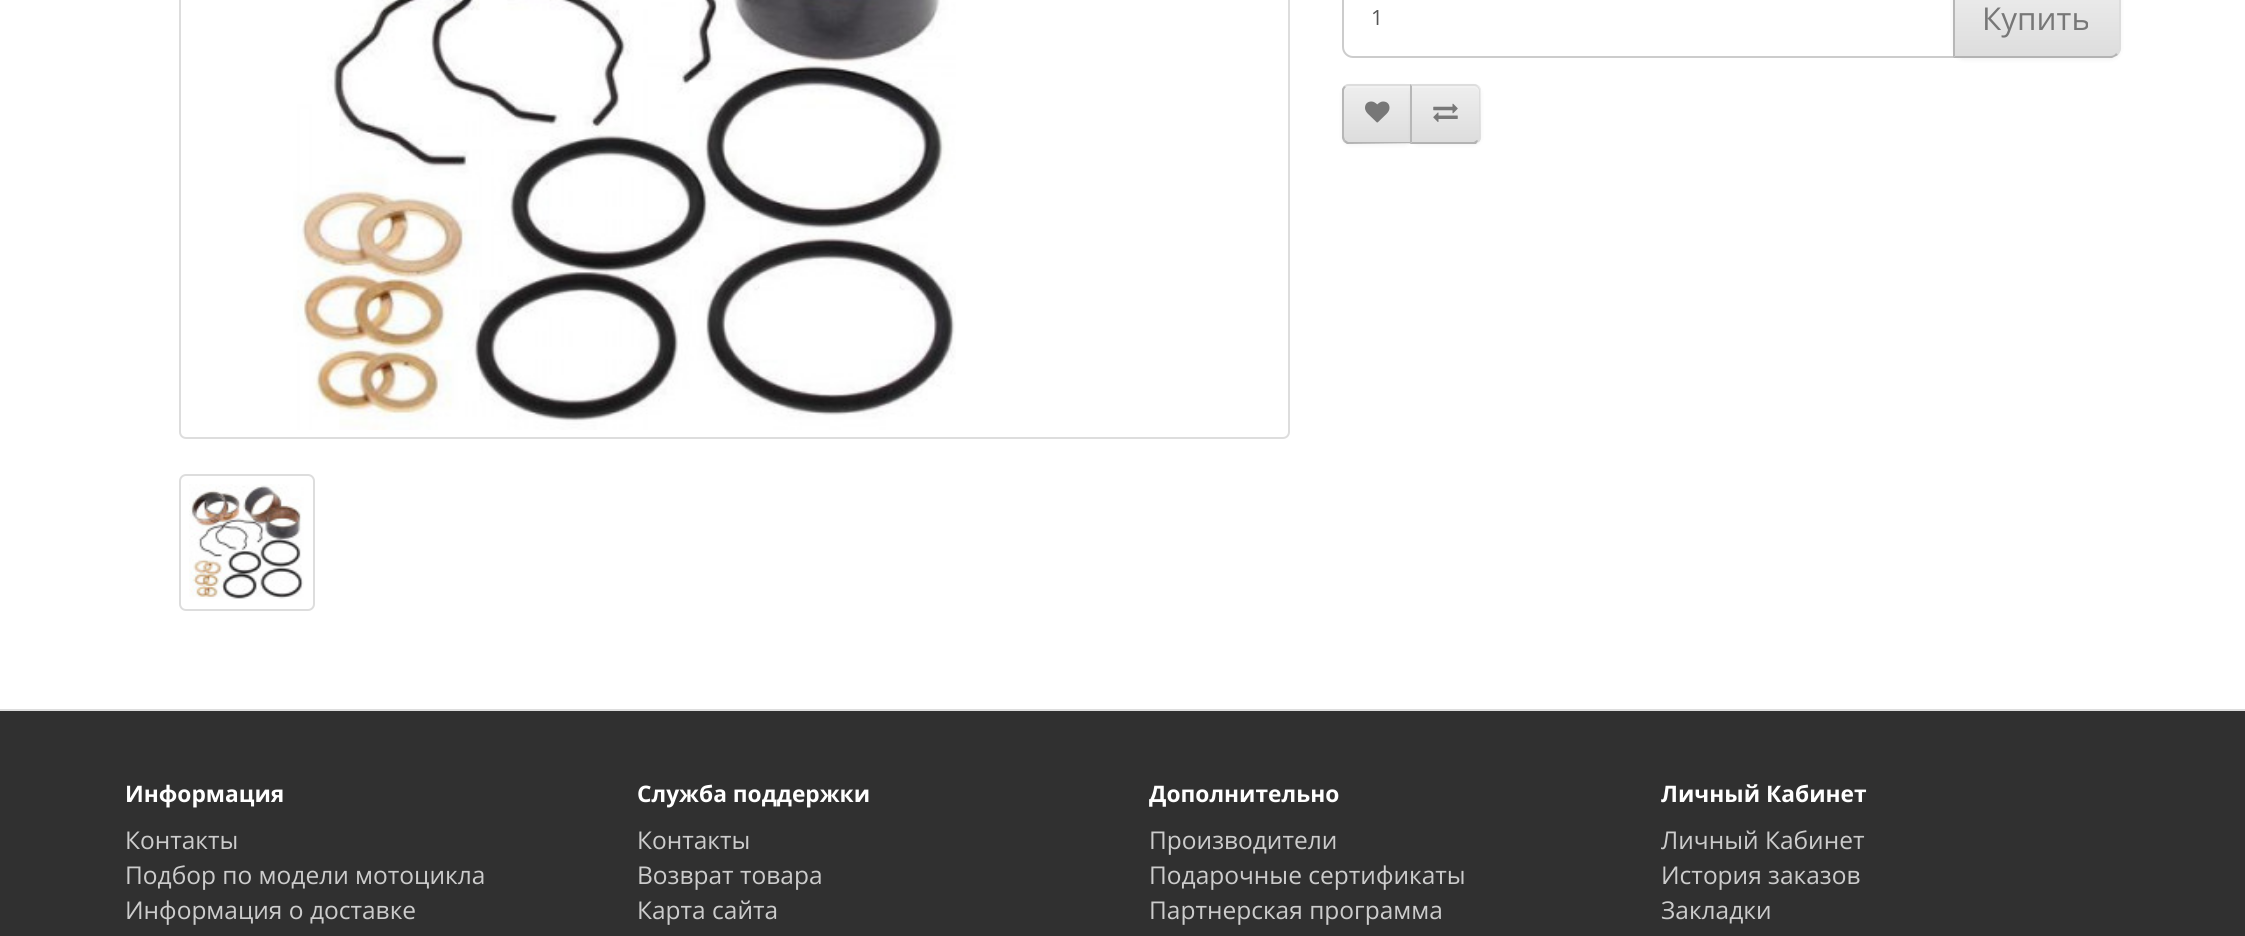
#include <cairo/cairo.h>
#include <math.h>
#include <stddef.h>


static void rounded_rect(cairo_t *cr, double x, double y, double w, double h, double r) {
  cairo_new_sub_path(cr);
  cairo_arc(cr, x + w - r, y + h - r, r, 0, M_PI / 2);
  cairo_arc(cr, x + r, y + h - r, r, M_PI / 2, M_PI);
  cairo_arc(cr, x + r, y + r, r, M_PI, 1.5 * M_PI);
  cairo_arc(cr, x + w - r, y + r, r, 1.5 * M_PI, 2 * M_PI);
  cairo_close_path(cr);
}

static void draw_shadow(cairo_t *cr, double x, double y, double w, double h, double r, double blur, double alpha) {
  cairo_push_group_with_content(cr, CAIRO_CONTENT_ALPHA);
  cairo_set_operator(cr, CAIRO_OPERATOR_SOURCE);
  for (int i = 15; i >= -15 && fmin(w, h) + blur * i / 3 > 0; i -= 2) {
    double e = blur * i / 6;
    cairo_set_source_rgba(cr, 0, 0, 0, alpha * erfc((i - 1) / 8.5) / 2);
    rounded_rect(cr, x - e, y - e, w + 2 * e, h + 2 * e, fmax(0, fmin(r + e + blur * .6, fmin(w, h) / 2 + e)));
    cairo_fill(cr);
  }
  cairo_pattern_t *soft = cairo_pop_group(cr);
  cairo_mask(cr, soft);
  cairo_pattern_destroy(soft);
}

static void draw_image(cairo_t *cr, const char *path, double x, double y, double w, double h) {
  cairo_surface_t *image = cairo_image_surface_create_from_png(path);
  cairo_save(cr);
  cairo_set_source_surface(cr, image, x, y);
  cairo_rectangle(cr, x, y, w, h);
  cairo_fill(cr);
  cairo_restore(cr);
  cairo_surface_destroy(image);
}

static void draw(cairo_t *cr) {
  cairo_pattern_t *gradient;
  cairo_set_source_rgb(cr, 1, 1, 1);
  cairo_paint(cr);
  rounded_rect(cr, 180, -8, 1109, 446, 6);
  cairo_set_source_rgb(cr, 221 / 255.0, 221 / 255.0, 221 / 255.0);
  cairo_stroke(cr);
  draw_image(cr, "images/1.png", 293, 0, 663, 430);
  rounded_rect(cr, 180, 475, 134, 135, 6);
  cairo_stroke(cr);
  draw_image(cr, "images/2.png", 189, 484, 115, 115);
  cairo_new_path(cr);
  cairo_move_to(cr, 1353, -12);
  cairo_line_to(cr, 1954, -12);
  cairo_line_to(cr, 1954, 57);
  cairo_line_to(cr, 1353, 57);
  cairo_curve_to(cr, 1347.5, 57, 1343, 52.5, 1343, 47);
  cairo_line_to(cr, 1343, -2);
  cairo_curve_to(cr, 1343, -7.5, 1347.5, -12, 1353, -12);
  cairo_close_path(cr);
  cairo_set_source_rgb(cr, 204 / 255.0, 204 / 255.0, 204 / 255.0);
  cairo_stroke(cr);
  cairo_set_source_rgb(cr, 0, 0, 0);
  draw_shadow(cr, 1953, -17, 168, 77, 11, 2, 0.05);
  cairo_set_source_rgb(cr, 231 / 255.0, 231 / 255.0, 231 / 255.0);
  cairo_new_path(cr);
  cairo_move_to(cr, 1953, -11);
  cairo_line_to(cr, 2110, -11);
  cairo_curve_to(cr, 2116, -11, 2121, -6, 2121, 0);
  cairo_line_to(cr, 2121, 47);
  cairo_curve_to(cr, 2121, 53, 2116, 58, 2110, 58);
  cairo_line_to(cr, 1953, 58);
  cairo_close_path(cr);
  cairo_fill(cr);
  cairo_save(cr);
  cairo_new_path(cr);
  cairo_move_to(cr, 1953, -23);
  cairo_line_to(cr, 2110, -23);
  cairo_curve_to(cr, 2116, -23, 2121, -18, 2121, -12);
  cairo_line_to(cr, 2121, 47);
  cairo_curve_to(cr, 2121, 53, 2116, 58, 2110, 58);
  cairo_line_to(cr, 1953, 58);
  cairo_close_path(cr);
  cairo_clip(cr);
  gradient = cairo_pattern_create_linear(2037, -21, 2037, 56);
  cairo_pattern_add_color_stop_rgba(gradient, 0, 238 / 255.0, 238 / 255.0, 238 / 255.0, 1);
  cairo_pattern_add_color_stop_rgba(gradient, 1, 221 / 255.0, 221 / 255.0, 221 / 255.0, 1);
  cairo_set_source(cr, gradient);
  cairo_pattern_destroy(gradient);
  cairo_rectangle(cr, 1955, 0, 166, 56);
  cairo_fill(cr);
  cairo_restore(cr);
  cairo_set_source_rgb(cr, 221 / 255.0, 221 / 255.0, 221 / 255.0);
  cairo_new_path(cr);
  cairo_move_to(cr, 2121, 47);
  cairo_line_to(cr, 2121, -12);
  cairo_curve_to(cr, 2121, -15, 2120, -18, 2118, -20);
  cairo_line_to(cr, 2116, -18);
  cairo_curve_to(cr, 2118, -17, 2119, -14, 2119, -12);
  cairo_line_to(cr, 2119, 47);
  cairo_curve_to(cr, 2119, 49, 2118, 52, 2116, 53);
  cairo_line_to(cr, 2118, 55);
  cairo_curve_to(cr, 2120, 53, 2121, 50, 2121, 47);
  cairo_close_path(cr);
  cairo_fill(cr);
  cairo_set_source_rgb(cr, 179 / 255.0, 179 / 255.0, 179 / 255.0);
  cairo_new_path(cr);
  cairo_move_to(cr, 2112, 58);
  cairo_line_to(cr, 1953, 58);
  cairo_line_to(cr, 1955, 56);
  cairo_line_to(cr, 2110, 56);
  cairo_curve_to(cr, 2113, 56, 2115, 55, 2116, 53);
  cairo_line_to(cr, 2118, 55);
  cairo_curve_to(cr, 2116, 56, 2114, 57, 2112, 58);
  cairo_close_path(cr);
  cairo_fill(cr);
  cairo_set_source_rgb(cr, 183 / 255.0, 183 / 255.0, 183 / 255.0);
  cairo_new_path(cr);
  cairo_move_to(cr, 1953, 58);
  cairo_line_to(cr, 1955, 56);
  cairo_line_to(cr, 1955, -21);
  cairo_line_to(cr, 1953, -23);
  cairo_close_path(cr);
  cairo_fill(cr);
  cairo_set_source_rgb(cr, 0, 0, 0);
  draw_shadow(cr, 1342, 86, 70, 59, 7, 2, 0.05);
  cairo_set_source_rgb(cr, 231 / 255.0, 231 / 255.0, 231 / 255.0);
  cairo_new_path(cr);
  cairo_move_to(cr, 1349, 84);
  cairo_line_to(cr, 1412, 84);
  cairo_line_to(cr, 1412, 144);
  cairo_line_to(cr, 1349, 144);
  cairo_curve_to(cr, 1345, 144, 1342, 141, 1342, 137);
  cairo_line_to(cr, 1342, 91);
  cairo_curve_to(cr, 1342, 87, 1345, 84, 1349, 84);
  cairo_close_path(cr);
  cairo_fill(cr);
  cairo_save(cr);
  cairo_new_path(cr);
  cairo_move_to(cr, 1349, 84);
  cairo_line_to(cr, 1412, 84);
  cairo_line_to(cr, 1412, 144);
  cairo_line_to(cr, 1349, 144);
  cairo_curve_to(cr, 1345, 144, 1342, 141, 1342, 137);
  cairo_line_to(cr, 1342, 91);
  cairo_curve_to(cr, 1342, 87, 1345, 84, 1349, 84);
  cairo_close_path(cr);
  cairo_clip(cr);
  gradient = cairo_pattern_create_linear(1377, 86, 1377, 142);
  cairo_pattern_add_color_stop_rgba(gradient, 0, 238 / 255.0, 238 / 255.0, 238 / 255.0, 1);
  cairo_pattern_add_color_stop_rgba(gradient, 1, 221 / 255.0, 221 / 255.0, 221 / 255.0, 1);
  cairo_set_source(cr, gradient);
  cairo_pattern_destroy(gradient);
  cairo_rectangle(cr, 1342, 86, 68, 56);
  cairo_fill(cr);
  cairo_restore(cr);
  cairo_set_source_rgba(cr, 1, 1, 1, 0.2);
  cairo_new_path(cr);
  cairo_move_to(cr, 1349, 88);
  cairo_line_to(cr, 1410, 88);
  cairo_line_to(cr, 1410, 142);
  cairo_line_to(cr, 1411, 142);
  cairo_line_to(cr, 1411, 86);
  cairo_line_to(cr, 1349, 86);
  cairo_curve_to(cr, 1346, 86, 1344, 88, 1344, 91);
  cairo_line_to(cr, 1344, 93);
  cairo_curve_to(cr, 1344, 90, 1346, 88, 1349, 88);
  cairo_close_path(cr);
  cairo_fill(cr);
  cairo_set_source_rgb(cr, 221 / 255.0, 221 / 255.0, 221 / 255.0);
  cairo_new_path(cr);
  cairo_move_to(cr, 1349, 84);
  cairo_curve_to(cr, 1347, 84, 1345, 85, 1344, 86);
  cairo_line_to(cr, 1346, 87);
  cairo_curve_to(cr, 1346, 86, 1348, 86, 1349, 86);
  cairo_line_to(cr, 1410, 86);
  cairo_line_to(cr, 1412, 84);
  cairo_close_path(cr);
  cairo_fill(cr);
  cairo_set_source_rgb(cr, 179 / 255.0, 179 / 255.0, 179 / 255.0);
  cairo_new_path(cr);
  cairo_move_to(cr, 1347, 144);
  cairo_line_to(cr, 1344, 142);
  cairo_line_to(cr, 1345, 140);
  cairo_line_to(cr, 1348, 142);
  cairo_line_to(cr, 1410, 142);
  cairo_line_to(cr, 1410, 141);
  cairo_line_to(cr, 1412, 143);
  cairo_close_path(cr);
  cairo_fill(cr);
  cairo_set_source_rgb(cr, 183 / 255.0, 183 / 255.0, 183 / 255.0);
  cairo_new_path(cr);
  cairo_move_to(cr, 1342, 89);
  cairo_line_to(cr, 1344, 86);
  cairo_line_to(cr, 1346, 87);
  cairo_curve_to(cr, 1345, 88, 1344, 89, 1344, 91);
  cairo_line_to(cr, 1344, 136);
  cairo_curve_to(cr, 1344, 138, 1345, 139, 1345, 140);
  cairo_line_to(cr, 1344, 142);
  cairo_line_to(cr, 1342, 138);
  cairo_close_path(cr);
  cairo_fill(cr);
  draw_image(cr, "images/3.png", 1365, 101, 25, 22);
  cairo_set_source_rgb(cr, 0, 0, 0);
  draw_shadow(cr, 1411, 86, 70, 59, 7, 2, 0.05);
  cairo_set_source_rgb(cr, 231 / 255.0, 231 / 255.0, 231 / 255.0);
  cairo_new_path(cr);
  cairo_move_to(cr, 1411, 84);
  cairo_line_to(cr, 1474, 84);
  cairo_curve_to(cr, 1478, 84, 1481, 87, 1481, 91);
  cairo_line_to(cr, 1481, 137);
  cairo_curve_to(cr, 1481, 141, 1478, 144, 1474, 144);
  cairo_line_to(cr, 1411, 144);
  cairo_close_path(cr);
  cairo_fill(cr);
  cairo_save(cr);
  cairo_new_path(cr);
  cairo_move_to(cr, 1411, 84);
  cairo_line_to(cr, 1474, 84);
  cairo_curve_to(cr, 1478, 84, 1481, 87, 1481, 91);
  cairo_line_to(cr, 1481, 137);
  cairo_curve_to(cr, 1481, 141, 1478, 144, 1474, 144);
  cairo_line_to(cr, 1411, 144);
  cairo_close_path(cr);
  cairo_clip(cr);
  gradient = cairo_pattern_create_linear(1446, 86, 1446, 142);
  cairo_pattern_add_color_stop_rgba(gradient, 0, 238 / 255.0, 238 / 255.0, 238 / 255.0, 1);
  cairo_pattern_add_color_stop_rgba(gradient, 1, 221 / 255.0, 221 / 255.0, 221 / 255.0, 1);
  cairo_set_source(cr, gradient);
  cairo_pattern_destroy(gradient);
  cairo_rectangle(cr, 1412, 86, 69, 56);
  cairo_fill(cr);
  cairo_restore(cr);
  cairo_set_source_rgb(cr, 241 / 255.0, 241 / 255.0, 241 / 255.0);
  cairo_new_path(cr);
  cairo_move_to(cr, 1412, 88);
  cairo_line_to(cr, 1474, 88);
  cairo_curve_to(cr, 1476, 88, 1479, 90, 1479, 93);
  cairo_line_to(cr, 1479, 91);
  cairo_curve_to(cr, 1479, 88, 1477, 86, 1474, 86);
  cairo_line_to(cr, 1412, 86);
  cairo_close_path(cr);
  cairo_fill(cr);
  cairo_set_source_rgb(cr, 221 / 255.0, 221 / 255.0, 221 / 255.0);
  cairo_new_path(cr);
  cairo_move_to(cr, 1410, 84);
  cairo_line_to(cr, 1412, 86);
  cairo_line_to(cr, 1474, 86);
  cairo_curve_to(cr, 1475, 86, 1476, 86, 1477, 87);
  cairo_line_to(cr, 1478, 86);
  cairo_curve_to(cr, 1477, 85, 1476, 84, 1474, 84);
  cairo_close_path(cr);
  cairo_fill(cr);
  cairo_new_path(cr);
  cairo_move_to(cr, 1478, 86);
  cairo_curve_to(cr, 1479, 87, 1480, 89, 1480, 91);
  cairo_line_to(cr, 1480, 136);
  cairo_curve_to(cr, 1480, 138, 1479, 140, 1478, 141);
  cairo_line_to(cr, 1477, 140);
  cairo_curve_to(cr, 1478, 139, 1479, 138, 1479, 136);
  cairo_line_to(cr, 1479, 91);
  cairo_curve_to(cr, 1479, 89, 1478, 88, 1477, 87);
  cairo_close_path(cr);
  cairo_fill(cr);
  cairo_set_source_rgb(cr, 179 / 255.0, 179 / 255.0, 179 / 255.0);
  cairo_new_path(cr);
  cairo_move_to(cr, 1478, 141);
  cairo_line_to(cr, 1476, 144);
  cairo_line_to(cr, 1410, 144);
  cairo_line_to(cr, 1412, 142);
  cairo_line_to(cr, 1474, 142);
  cairo_line_to(cr, 1477, 140);
  cairo_close_path(cr);
  cairo_fill(cr);
  cairo_set_source_rgb(cr, 183 / 255.0, 183 / 255.0, 183 / 255.0);
  cairo_new_path(cr);
  cairo_move_to(cr, 1412, 86);
  cairo_line_to(cr, 1410, 84);
  cairo_line_to(cr, 1410, 144);
  cairo_line_to(cr, 1412, 142);
  cairo_close_path(cr);
  cairo_fill(cr);
  draw_image(cr, "images/4.png", 1433, 103, 25, 19);
  cairo_set_source_rgb(cr, 48 / 255.0, 48 / 255.0, 48 / 255.0);
  cairo_rectangle(cr, 0, 711, 2245, 225);
  cairo_fill(cr);
  cairo_set_source_rgb(cr, 221 / 255.0, 221 / 255.0, 221 / 255.0);
  cairo_rectangle(cr, 0, 709, 2245, 2);
  cairo_fill(cr);
  cairo_select_font_face(cr, "Open Sans", CAIRO_FONT_SLANT_NORMAL, CAIRO_FONT_WEIGHT_NORMAL);
  cairo_set_font_size(cr, 21);
  cairo_set_source_rgb(cr, 85 / 255.0, 85 / 255.0, 85 / 255.0);
  cairo_move_to(cr, 1371, 25);
  cairo_show_text(cr, "1");
  cairo_set_font_size(cr, 31.5);
  cairo_set_source_rgb(cr, 119 / 255.0, 119 / 255.0, 119 / 255.0);
  cairo_move_to(cr, 1982, 30);
  cairo_show_text(cr, "Купить");
  cairo_select_font_face(cr, "Open Sans", CAIRO_FONT_SLANT_NORMAL, CAIRO_FONT_WEIGHT_BOLD);
  cairo_set_font_size(cr, 22.75);
  cairo_set_source_rgb(cr, 1, 1, 1);
  cairo_move_to(cr, 125, 802);
  cairo_show_text(cr, "Информация");
  cairo_select_font_face(cr, "Open Sans", CAIRO_FONT_SLANT_NORMAL, CAIRO_FONT_WEIGHT_NORMAL);
  cairo_set_font_size(cr, 24.5);
  cairo_set_source_rgb(cr, 204 / 255.0, 204 / 255.0, 204 / 255.0);
  cairo_move_to(cr, 125, 849);
  cairo_show_text(cr, "Контакты");
  cairo_move_to(cr, 125, 884);
  cairo_show_text(cr, "Подбор по модели мотоцикла");
  cairo_move_to(cr, 125, 919);
  cairo_show_text(cr, "Информация о доставке");
  cairo_select_font_face(cr, "Open Sans", CAIRO_FONT_SLANT_NORMAL, CAIRO_FONT_WEIGHT_BOLD);
  cairo_set_font_size(cr, 22.75);
  cairo_set_source_rgb(cr, 1, 1, 1);
  cairo_move_to(cr, 637, 802);
  cairo_show_text(cr, "Служба поддержки");
  cairo_select_font_face(cr, "Open Sans", CAIRO_FONT_SLANT_NORMAL, CAIRO_FONT_WEIGHT_NORMAL);
  cairo_set_font_size(cr, 24.5);
  cairo_set_source_rgb(cr, 204 / 255.0, 204 / 255.0, 204 / 255.0);
  cairo_move_to(cr, 637, 849);
  cairo_show_text(cr, "Контакты");
  cairo_move_to(cr, 637, 884);
  cairo_show_text(cr, "Возврат товара");
  cairo_move_to(cr, 637, 919);
  cairo_show_text(cr, "Карта сайта");
  cairo_select_font_face(cr, "Open Sans", CAIRO_FONT_SLANT_NORMAL, CAIRO_FONT_WEIGHT_BOLD);
  cairo_set_font_size(cr, 22.75);
  cairo_set_source_rgb(cr, 1, 1, 1);
  cairo_move_to(cr, 1149, 802);
  cairo_show_text(cr, "Дополнительно");
  cairo_select_font_face(cr, "Open Sans", CAIRO_FONT_SLANT_NORMAL, CAIRO_FONT_WEIGHT_NORMAL);
  cairo_set_font_size(cr, 24.5);
  cairo_set_source_rgb(cr, 204 / 255.0, 204 / 255.0, 204 / 255.0);
  cairo_move_to(cr, 1149, 849);
  cairo_show_text(cr, "Производители");
  cairo_move_to(cr, 1149, 884);
  cairo_show_text(cr, "Подарочные сертификаты");
  cairo_move_to(cr, 1149, 919);
  cairo_show_text(cr, "Партнерская программа");
  cairo_select_font_face(cr, "Open Sans", CAIRO_FONT_SLANT_NORMAL, CAIRO_FONT_WEIGHT_BOLD);
  cairo_set_font_size(cr, 22.75);
  cairo_set_source_rgb(cr, 1, 1, 1);
  cairo_move_to(cr, 1661, 802);
  cairo_show_text(cr, "Личный Кабинет");
  cairo_select_font_face(cr, "Open Sans", CAIRO_FONT_SLANT_NORMAL, CAIRO_FONT_WEIGHT_NORMAL);
  cairo_set_font_size(cr, 24.5);
  cairo_set_source_rgb(cr, 204 / 255.0, 204 / 255.0, 204 / 255.0);
  cairo_move_to(cr, 1661, 849);
  cairo_show_text(cr, "Личный Кабинет");
  cairo_move_to(cr, 1661, 884);
  cairo_show_text(cr, "История заказов");
  cairo_move_to(cr, 1661, 919);
  cairo_show_text(cr, "Закладки");
}

int main(void) {
  cairo_surface_t *surface = cairo_image_surface_create(CAIRO_FORMAT_RGB24, 2245, 936);
  cairo_t *cr = cairo_create(surface);
  cairo_font_options_t *options = cairo_font_options_create();
  cairo_font_options_set_hint_metrics(options, CAIRO_HINT_METRICS_OFF);
  cairo_font_options_set_hint_style(options, CAIRO_HINT_STYLE_NONE);
  cairo_set_font_options(cr, options);
  cairo_set_miter_limit(cr, 4);
  draw(cr);
  cairo_surface_write_to_png(surface, "out.png");
  cairo_font_options_destroy(options);
  cairo_destroy(cr);
  cairo_surface_destroy(surface);
  return 0;
}
